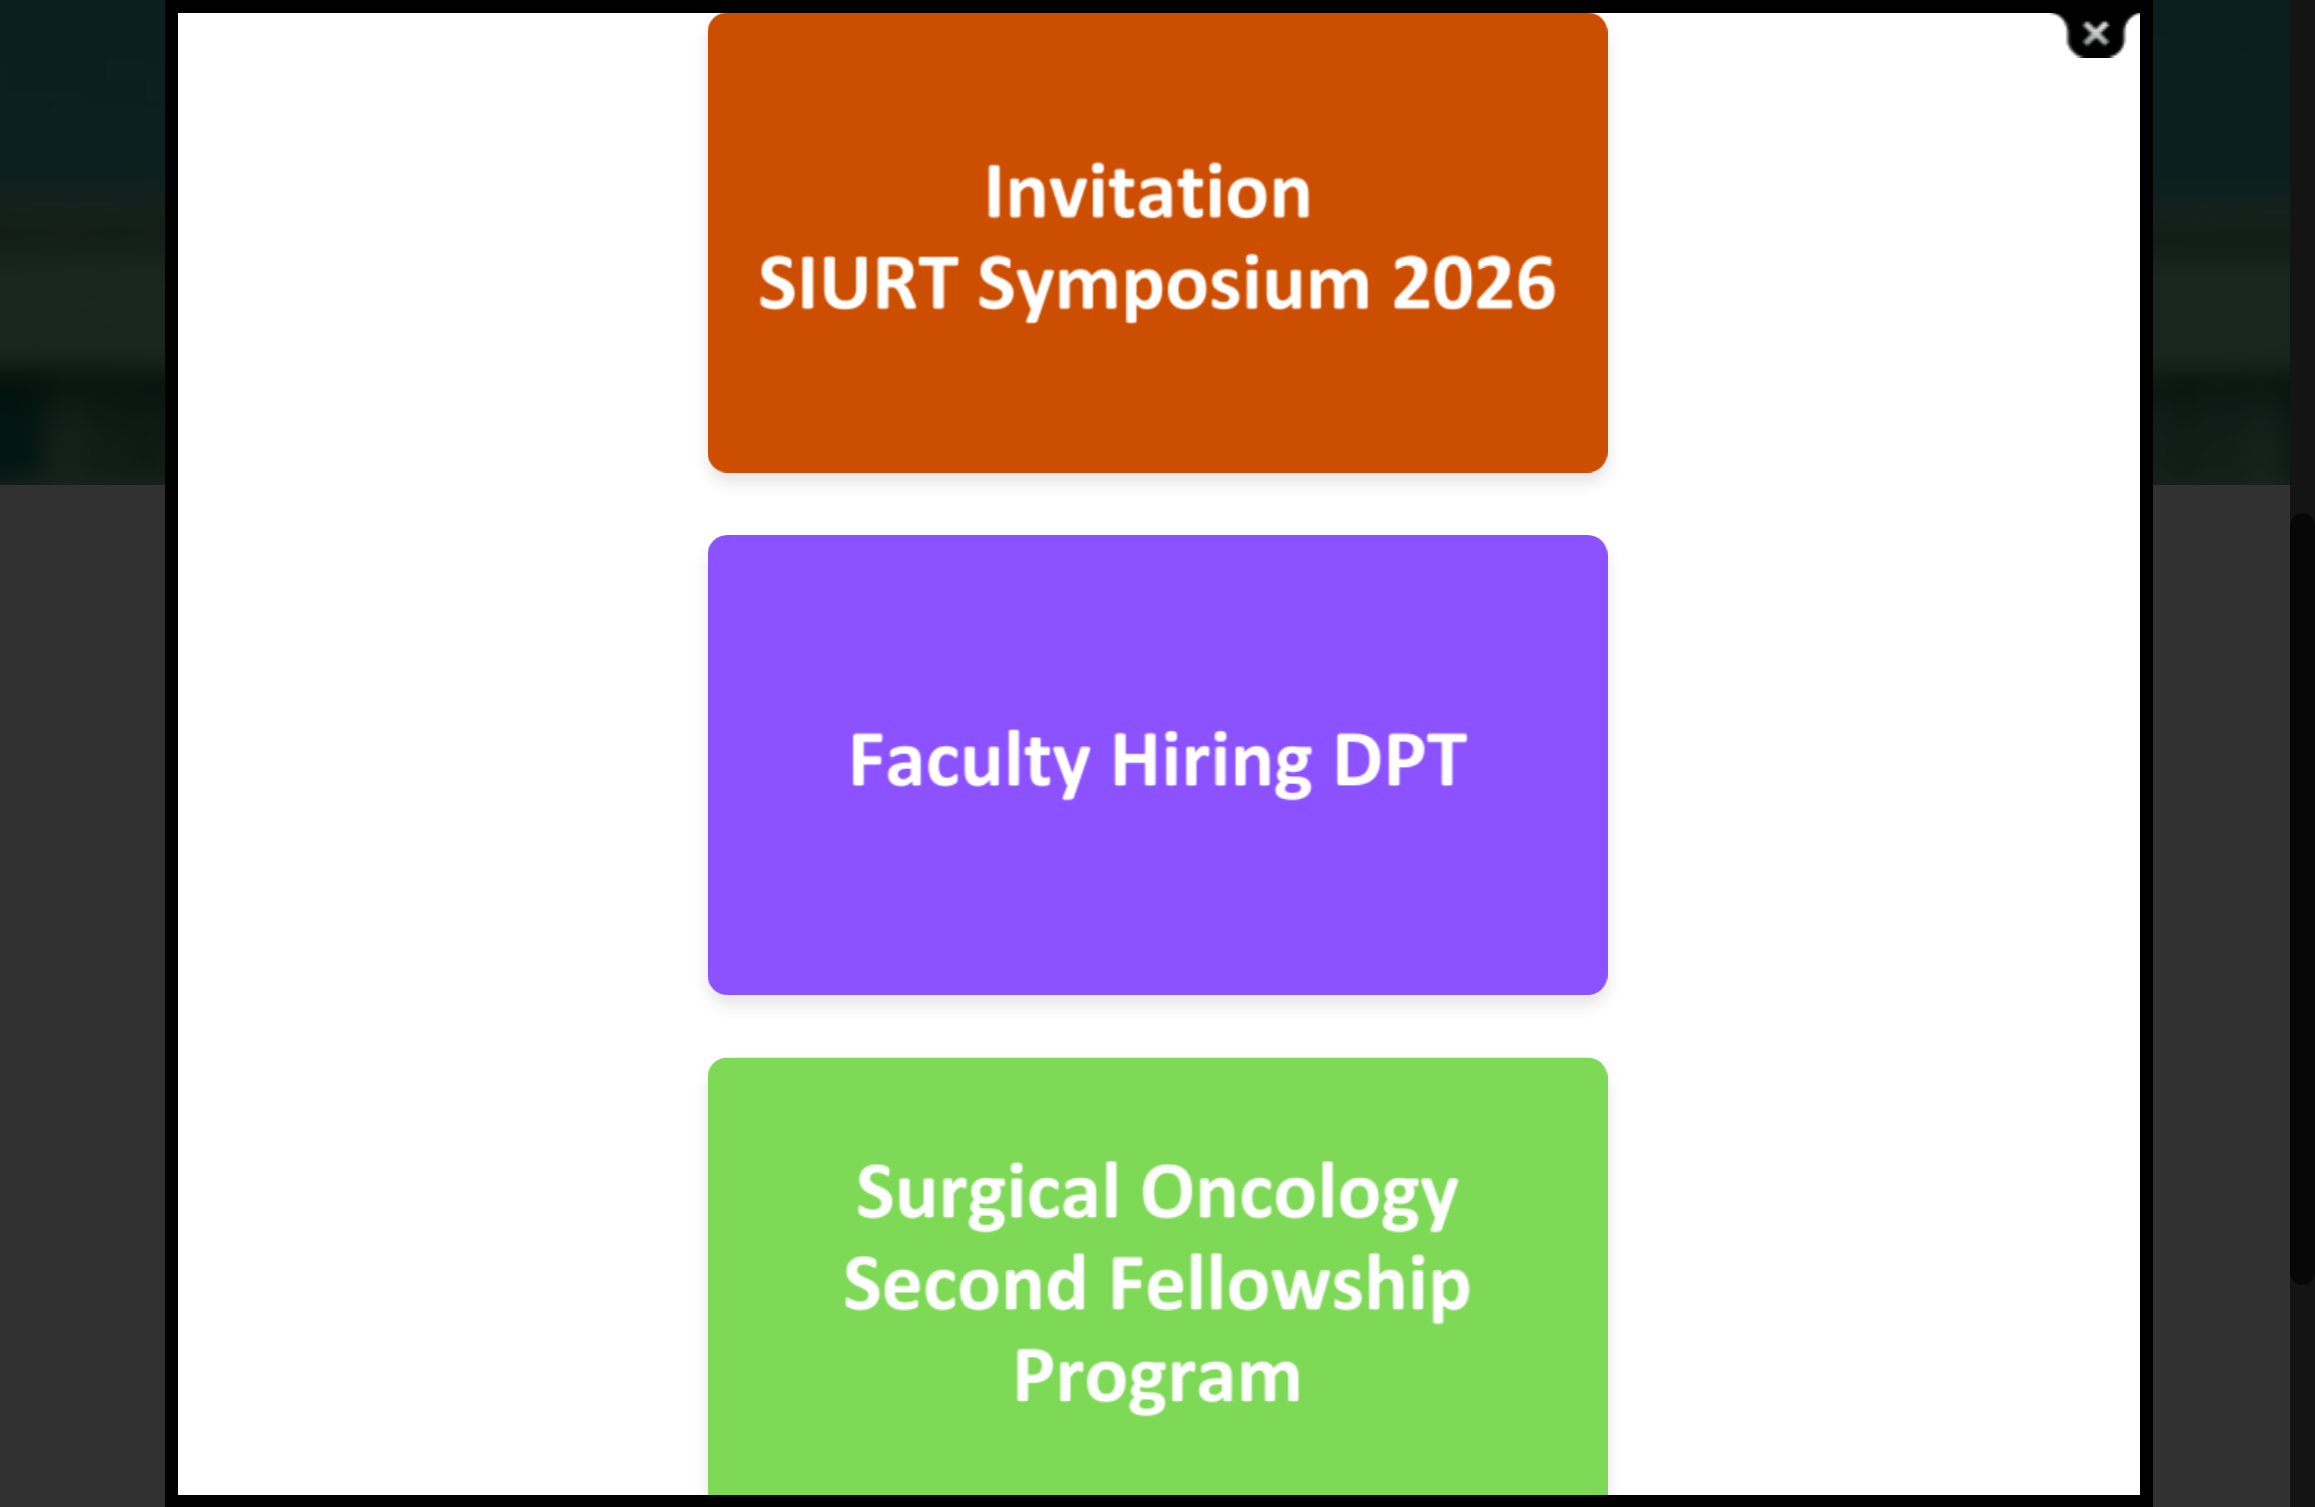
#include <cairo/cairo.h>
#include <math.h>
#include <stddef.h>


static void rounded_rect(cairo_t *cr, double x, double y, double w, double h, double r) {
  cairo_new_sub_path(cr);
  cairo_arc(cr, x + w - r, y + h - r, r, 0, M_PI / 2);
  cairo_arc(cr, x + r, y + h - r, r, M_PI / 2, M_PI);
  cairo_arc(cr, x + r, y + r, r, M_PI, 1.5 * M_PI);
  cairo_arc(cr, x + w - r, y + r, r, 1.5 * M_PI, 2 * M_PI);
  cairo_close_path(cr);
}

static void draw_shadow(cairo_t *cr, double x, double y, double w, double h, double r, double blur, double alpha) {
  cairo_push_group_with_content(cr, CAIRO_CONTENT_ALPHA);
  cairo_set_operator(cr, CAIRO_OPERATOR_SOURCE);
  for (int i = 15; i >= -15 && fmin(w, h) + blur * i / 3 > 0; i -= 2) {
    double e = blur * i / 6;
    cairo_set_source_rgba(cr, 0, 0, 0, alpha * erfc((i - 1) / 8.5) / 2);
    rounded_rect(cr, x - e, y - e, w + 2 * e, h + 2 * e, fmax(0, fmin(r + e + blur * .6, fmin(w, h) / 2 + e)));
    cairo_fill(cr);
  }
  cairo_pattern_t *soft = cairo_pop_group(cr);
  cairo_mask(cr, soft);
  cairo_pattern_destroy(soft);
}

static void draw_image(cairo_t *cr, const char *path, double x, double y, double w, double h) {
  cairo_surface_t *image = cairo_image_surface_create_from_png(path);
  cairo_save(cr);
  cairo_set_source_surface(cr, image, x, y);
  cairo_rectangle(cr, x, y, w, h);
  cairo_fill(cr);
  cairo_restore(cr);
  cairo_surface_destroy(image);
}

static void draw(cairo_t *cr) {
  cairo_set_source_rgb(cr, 49 / 255.0, 49 / 255.0, 49 / 255.0);
  cairo_paint(cr);
  draw_image(cr, "images/1.png", 0, 0, 2290, 485);
  cairo_set_source_rgb(cr, 1, 1, 1);
  cairo_rectangle(cr, 171.5, 6.5, 1975, 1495);
  cairo_fill_preserve(cr);
  cairo_set_source_rgb(cr, 0, 0, 0);
  cairo_set_line_width(cr, 13);
  cairo_stroke(cr);
  cairo_set_source_rgb(cr, 0, 0, 0);
  draw_shadow(cr, 708, 23, 900, 460, 20, 7.5, 0.1);
  draw_image(cr, "images/2.png", 708, 13, 900, 460);
  draw_shadow(cr, 708, 545, 900, 460, 20, 7.5, 0.1);
  draw_image(cr, "images/3.png", 708, 535, 900, 460);
  cairo_save(cr);
  cairo_rectangle(cr, 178, 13, 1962, 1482);
  cairo_clip(cr);
  draw_shadow(cr, 708, 1068, 900, 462, 20, 7.5, 0.1);
  cairo_restore(cr);
  draw_image(cr, "images/4.png", 708, 1057, 900, 438);
  draw_image(cr, "images/5.png", 2049, 13, 91, 45);
  cairo_set_source_rgb(cr, 20 / 255.0, 20 / 255.0, 20 / 255.0);
  cairo_rectangle(cr, 2290, 0, 25, 1507);
  cairo_fill(cr);
  cairo_set_source_rgb(cr, 7 / 255.0, 7 / 255.0, 7 / 255.0);
  rounded_rect(cr, 2290, 513, 25, 772, 12.5);
  cairo_fill(cr);
}

int main(void) {
  cairo_surface_t *surface = cairo_image_surface_create(CAIRO_FORMAT_RGB24, 2315, 1507);
  cairo_t *cr = cairo_create(surface);
  cairo_font_options_t *options = cairo_font_options_create();
  cairo_font_options_set_hint_metrics(options, CAIRO_HINT_METRICS_OFF);
  cairo_font_options_set_hint_style(options, CAIRO_HINT_STYLE_NONE);
  cairo_set_font_options(cr, options);
  cairo_set_miter_limit(cr, 4);
  draw(cr);
  cairo_surface_write_to_png(surface, "out.png");
  cairo_font_options_destroy(options);
  cairo_destroy(cr);
  cairo_surface_destroy(surface);
  return 0;
}
